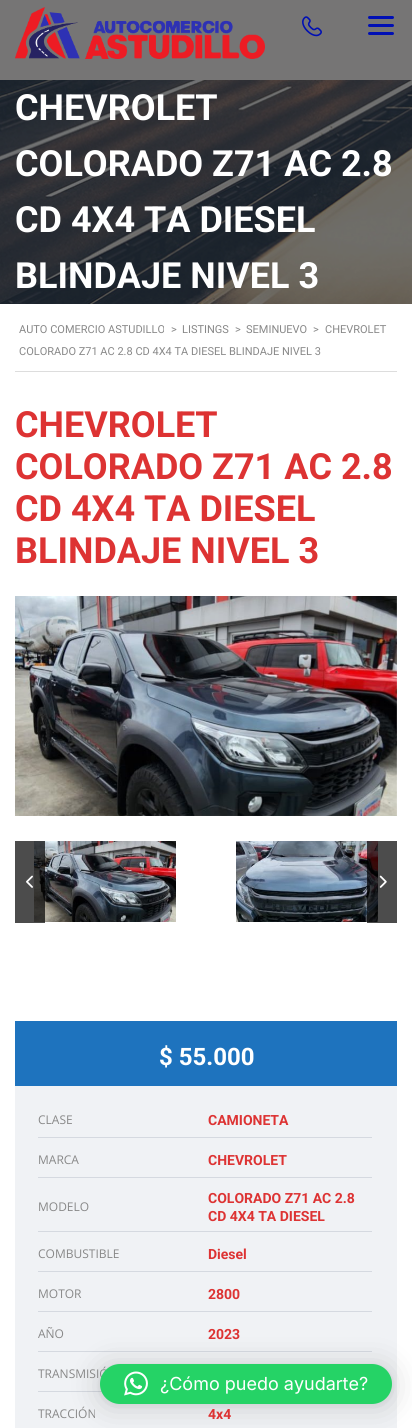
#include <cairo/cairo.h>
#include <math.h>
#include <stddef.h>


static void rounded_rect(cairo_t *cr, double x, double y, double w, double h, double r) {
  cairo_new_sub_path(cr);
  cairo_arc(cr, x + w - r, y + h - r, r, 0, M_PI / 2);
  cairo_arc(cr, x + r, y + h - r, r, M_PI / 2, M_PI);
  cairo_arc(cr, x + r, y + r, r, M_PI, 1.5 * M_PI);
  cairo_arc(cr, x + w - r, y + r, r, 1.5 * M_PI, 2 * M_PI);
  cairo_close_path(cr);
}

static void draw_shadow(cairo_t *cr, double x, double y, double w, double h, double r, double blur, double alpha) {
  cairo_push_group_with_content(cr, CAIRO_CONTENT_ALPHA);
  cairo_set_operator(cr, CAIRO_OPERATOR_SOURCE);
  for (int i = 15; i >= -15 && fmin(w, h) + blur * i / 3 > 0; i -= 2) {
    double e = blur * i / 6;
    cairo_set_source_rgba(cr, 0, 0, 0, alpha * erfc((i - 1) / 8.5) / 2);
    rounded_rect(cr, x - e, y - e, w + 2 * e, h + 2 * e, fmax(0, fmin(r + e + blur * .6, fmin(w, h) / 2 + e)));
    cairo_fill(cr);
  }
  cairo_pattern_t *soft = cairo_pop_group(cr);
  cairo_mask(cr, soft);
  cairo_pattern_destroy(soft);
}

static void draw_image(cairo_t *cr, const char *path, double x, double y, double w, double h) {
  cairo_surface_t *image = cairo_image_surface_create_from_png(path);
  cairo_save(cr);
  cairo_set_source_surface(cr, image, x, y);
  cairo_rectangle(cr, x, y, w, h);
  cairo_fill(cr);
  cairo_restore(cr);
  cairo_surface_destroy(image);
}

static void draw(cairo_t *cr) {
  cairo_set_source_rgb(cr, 1, 1, 1);
  cairo_paint(cr);
  cairo_set_source_rgb(cr, 118 / 255.0, 117 / 255.0, 117 / 255.0);
  cairo_rectangle(cr, 0, 0, 412, 80);
  cairo_fill(cr);
  draw_image(cr, "images/1.png", 15, 7, 250, 52);
  draw_image(cr, "images/2.png", 302, 16, 20, 21);
  cairo_set_source_rgb(cr, 0, 15 / 255.0, 180 / 255.0);
  rounded_rect(cr, 368, 16, 26, 3, 1.5);
  cairo_fill(cr);
  rounded_rect(cr, 368, 24, 26, 3, 1.5);
  cairo_fill(cr);
  rounded_rect(cr, 368, 32, 26, 3, 1.5);
  cairo_fill(cr);
  draw_image(cr, "images/3.png", 0, 80, 412, 224);
  cairo_set_source_rgb(cr, 221 / 255.0, 221 / 255.0, 221 / 255.0);
  cairo_rectangle(cr, 15, 371, 382, 1);
  cairo_fill(cr);
  draw_image(cr, "images/4.png", 15, 596, 382, 220);
  draw_image(cr, "images/7.png", 34, 841, 142, 81);
  cairo_set_source_rgba(cr, 0, 0, 0, 0.7);
  cairo_rectangle(cr, 15, 841, 30, 82);
  cairo_fill(cr);
  draw_image(cr, "images/5.png", 26, 875, 7, 13);
  draw_image(cr, "images/8.png", 236, 841, 142, 81);
  cairo_rectangle(cr, 367, 841, 30, 82);
  cairo_fill(cr);
  draw_image(cr, "images/6.png", 379, 875, 8, 13);
  cairo_set_source_rgb(cr, 30 / 255.0, 115 / 255.0, 190 / 255.0);
  cairo_rectangle(cr, 15, 1021, 382, 65);
  cairo_fill(cr);
  cairo_set_source_rgb(cr, 240 / 255.0, 242 / 255.0, 245 / 255.0);
  cairo_rectangle(cr, 15, 1086, 382, 342);
  cairo_fill(cr);
  cairo_set_source_rgb(cr, 213 / 255.0, 217 / 255.0, 224 / 255.0);
  cairo_rectangle(cr, 38, 1137, 334, 1);
  cairo_fill(cr);
  cairo_rectangle(cr, 38, 1177, 334, 1);
  cairo_fill(cr);
  cairo_rectangle(cr, 38, 1231, 334, 1);
  cairo_fill(cr);
  cairo_rectangle(cr, 38, 1271, 334, 1);
  cairo_fill(cr);
  cairo_rectangle(cr, 38, 1311, 334, 1);
  cairo_fill(cr);
  cairo_rectangle(cr, 38, 1351, 334, 1);
  cairo_fill(cr);
  cairo_rectangle(cr, 38, 1391, 64, 1);
  cairo_fill(cr);
  cairo_set_source_rgb(cr, 0, 0, 0);
  draw_shadow(cr, 100, 1366, 292, 40, 20, 16, 0.16);
  draw_shadow(cr, 100, 1365, 292, 40, 20, 3, 0.06);
  cairo_select_font_face(cr, "Roboto", CAIRO_FONT_SLANT_NORMAL, CAIRO_FONT_WEIGHT_BOLD);
  cairo_set_font_size(cr, 36);
  cairo_set_source_rgb(cr, 1, 1, 1);
  cairo_move_to(cr, 15, 120);
  cairo_show_text(cr, "CHEVROLET");
  cairo_move_to(cr, 15, 176);
  cairo_show_text(cr, "COLORADO Z71 AC 2.8");
  cairo_move_to(cr, 15, 232);
  cairo_show_text(cr, "CD 4X4 TA DIESEL");
  cairo_move_to(cr, 15, 288);
  cairo_show_text(cr, "BLINDAJE NIVEL 3");
  cairo_select_font_face(cr, "Roboto", CAIRO_FONT_SLANT_NORMAL, CAIRO_FONT_WEIGHT_NORMAL);
  cairo_set_font_size(cr, 11);
  cairo_set_source_rgb(cr, 136 / 255.0, 136 / 255.0, 136 / 255.0);
  cairo_move_to(cr, 19, 333);
  cairo_show_text(cr, "AUTO COMERCIO ASTUDILLO");
  cairo_move_to(cr, 171, 333);
  cairo_show_text(cr, ">");
  cairo_move_to(cr, 182, 333);
  cairo_show_text(cr, "LISTINGS");
  cairo_move_to(cr, 235, 333);
  cairo_show_text(cr, ">");
  cairo_move_to(cr, 246, 333);
  cairo_show_text(cr, "SEMINUEVO");
  cairo_move_to(cr, 313, 333);
  cairo_show_text(cr, ">");
  cairo_move_to(cr, 325, 333);
  cairo_show_text(cr, "CHEVROLET");
  cairo_move_to(cr, 19, 355);
  cairo_show_text(cr, "COLORADO Z71 AC 2.8 CD 4X4 TA DIESEL BLINDAJE NIVEL 3");
  cairo_select_font_face(cr, "Roboto", CAIRO_FONT_SLANT_NORMAL, CAIRO_FONT_WEIGHT_BOLD);
  cairo_set_font_size(cr, 36);
  cairo_set_source_rgb(cr, 221 / 255.0, 51 / 255.0, 51 / 255.0);
  cairo_move_to(cr, 15, 437);
  cairo_show_text(cr, "CHEVROLET");
  cairo_move_to(cr, 15, 479);
  cairo_show_text(cr, "COLORADO Z71 AC 2.8");
  cairo_move_to(cr, 15, 521);
  cairo_show_text(cr, "CD 4X4 TA DIESEL");
  cairo_move_to(cr, 15, 563);
  cairo_show_text(cr, "BLINDAJE NIVEL 3");
  cairo_set_font_size(cr, 24);
  cairo_set_source_rgb(cr, 1, 1, 1);
  cairo_move_to(cr, 159, 1065);
  cairo_show_text(cr, "$ 55.000");
  cairo_select_font_face(cr, "Open Sans", CAIRO_FONT_SLANT_NORMAL, CAIRO_FONT_WEIGHT_NORMAL);
  cairo_set_font_size(cr, 12);
  cairo_set_source_rgb(cr, 136 / 255.0, 136 / 255.0, 136 / 255.0);
  cairo_move_to(cr, 38, 1124);
  cairo_show_text(cr, "CLASE");
  cairo_select_font_face(cr, "Roboto", CAIRO_FONT_SLANT_NORMAL, CAIRO_FONT_WEIGHT_BOLD);
  cairo_set_font_size(cr, 14);
  cairo_set_source_rgb(cr, 221 / 255.0, 51 / 255.0, 51 / 255.0);
  cairo_move_to(cr, 208, 1125);
  cairo_show_text(cr, "CAMIONETA");
  cairo_select_font_face(cr, "Open Sans", CAIRO_FONT_SLANT_NORMAL, CAIRO_FONT_WEIGHT_NORMAL);
  cairo_set_font_size(cr, 12);
  cairo_set_source_rgb(cr, 136 / 255.0, 136 / 255.0, 136 / 255.0);
  cairo_move_to(cr, 38, 1164);
  cairo_show_text(cr, "MARCA");
  cairo_select_font_face(cr, "Roboto", CAIRO_FONT_SLANT_NORMAL, CAIRO_FONT_WEIGHT_BOLD);
  cairo_set_font_size(cr, 14);
  cairo_set_source_rgb(cr, 221 / 255.0, 51 / 255.0, 51 / 255.0);
  cairo_move_to(cr, 208, 1165);
  cairo_show_text(cr, "CHEVROLET");
  cairo_select_font_face(cr, "Open Sans", CAIRO_FONT_SLANT_NORMAL, CAIRO_FONT_WEIGHT_NORMAL);
  cairo_set_font_size(cr, 12);
  cairo_set_source_rgb(cr, 136 / 255.0, 136 / 255.0, 136 / 255.0);
  cairo_move_to(cr, 38, 1211);
  cairo_show_text(cr, "MODELO");
  cairo_select_font_face(cr, "Roboto", CAIRO_FONT_SLANT_NORMAL, CAIRO_FONT_WEIGHT_BOLD);
  cairo_set_font_size(cr, 14);
  cairo_set_source_rgb(cr, 221 / 255.0, 51 / 255.0, 51 / 255.0);
  cairo_move_to(cr, 208, 1203);
  cairo_show_text(cr, "COLORADO Z71 AC 2.8");
  cairo_move_to(cr, 208, 1221);
  cairo_show_text(cr, "CD 4X4 TA DIESEL");
  cairo_select_font_face(cr, "Open Sans", CAIRO_FONT_SLANT_NORMAL, CAIRO_FONT_WEIGHT_NORMAL);
  cairo_set_font_size(cr, 12);
  cairo_set_source_rgb(cr, 136 / 255.0, 136 / 255.0, 136 / 255.0);
  cairo_move_to(cr, 38, 1258);
  cairo_show_text(cr, "COMBUSTIBLE");
  cairo_select_font_face(cr, "Roboto", CAIRO_FONT_SLANT_NORMAL, CAIRO_FONT_WEIGHT_BOLD);
  cairo_set_font_size(cr, 14);
  cairo_set_source_rgb(cr, 221 / 255.0, 51 / 255.0, 51 / 255.0);
  cairo_move_to(cr, 208, 1259);
  cairo_show_text(cr, "Diesel");
  cairo_select_font_face(cr, "Open Sans", CAIRO_FONT_SLANT_NORMAL, CAIRO_FONT_WEIGHT_NORMAL);
  cairo_set_font_size(cr, 12);
  cairo_set_source_rgb(cr, 136 / 255.0, 136 / 255.0, 136 / 255.0);
  cairo_move_to(cr, 38, 1298);
  cairo_show_text(cr, "MOTOR");
  cairo_select_font_face(cr, "Roboto", CAIRO_FONT_SLANT_NORMAL, CAIRO_FONT_WEIGHT_BOLD);
  cairo_set_font_size(cr, 14);
  cairo_set_source_rgb(cr, 221 / 255.0, 51 / 255.0, 51 / 255.0);
  cairo_move_to(cr, 208, 1299);
  cairo_show_text(cr, "2800");
  cairo_select_font_face(cr, "Open Sans", CAIRO_FONT_SLANT_NORMAL, CAIRO_FONT_WEIGHT_NORMAL);
  cairo_set_font_size(cr, 12);
  cairo_set_source_rgb(cr, 136 / 255.0, 136 / 255.0, 136 / 255.0);
  cairo_move_to(cr, 38, 1338);
  cairo_show_text(cr, "AÑO");
  cairo_select_font_face(cr, "Roboto", CAIRO_FONT_SLANT_NORMAL, CAIRO_FONT_WEIGHT_BOLD);
  cairo_set_font_size(cr, 14);
  cairo_set_source_rgb(cr, 221 / 255.0, 51 / 255.0, 51 / 255.0);
  cairo_move_to(cr, 208, 1339);
  cairo_show_text(cr, "2023");
  cairo_select_font_face(cr, "Open Sans", CAIRO_FONT_SLANT_NORMAL, CAIRO_FONT_WEIGHT_NORMAL);
  cairo_set_font_size(cr, 12);
  cairo_set_source_rgb(cr, 136 / 255.0, 136 / 255.0, 136 / 255.0);
  cairo_move_to(cr, 38, 1378);
  cairo_show_text(cr, "TRANSMISIÓ");
  cairo_move_to(cr, 38, 1418);
  cairo_show_text(cr, "TRACCIÓN");
  cairo_select_font_face(cr, "Roboto", CAIRO_FONT_SLANT_NORMAL, CAIRO_FONT_WEIGHT_BOLD);
  cairo_set_font_size(cr, 14);
  cairo_set_source_rgb(cr, 221 / 255.0, 51 / 255.0, 51 / 255.0);
  cairo_move_to(cr, 208, 1419);
  cairo_show_text(cr, "4x4");
  cairo_set_source_rgb(cr, 37 / 255.0, 211 / 255.0, 102 / 255.0);
  rounded_rect(cr, 100, 1364, 292, 40, 20);
  cairo_fill(cr);
  draw_image(cr, "images/9.png", 124, 1371, 24, 25);
  cairo_select_font_face(cr, "Inter", CAIRO_FONT_SLANT_NORMAL, CAIRO_FONT_WEIGHT_NORMAL);
  cairo_set_font_size(cr, 18);
  cairo_set_source_rgb(cr, 1, 1, 1);
  cairo_move_to(cr, 160, 1390);
  cairo_show_text(cr, "¿Cómo puedo ayudarte?");
}

int main(void) {
  cairo_surface_t *surface = cairo_image_surface_create(CAIRO_FORMAT_RGB24, 412, 1428);
  cairo_t *cr = cairo_create(surface);
  cairo_font_options_t *options = cairo_font_options_create();
  cairo_font_options_set_hint_metrics(options, CAIRO_HINT_METRICS_OFF);
  cairo_font_options_set_hint_style(options, CAIRO_HINT_STYLE_NONE);
  cairo_set_font_options(cr, options);
  cairo_set_miter_limit(cr, 4);
  draw(cr);
  cairo_surface_write_to_png(surface, "out.png");
  cairo_font_options_destroy(options);
  cairo_destroy(cr);
  cairo_surface_destroy(surface);
  return 0;
}
